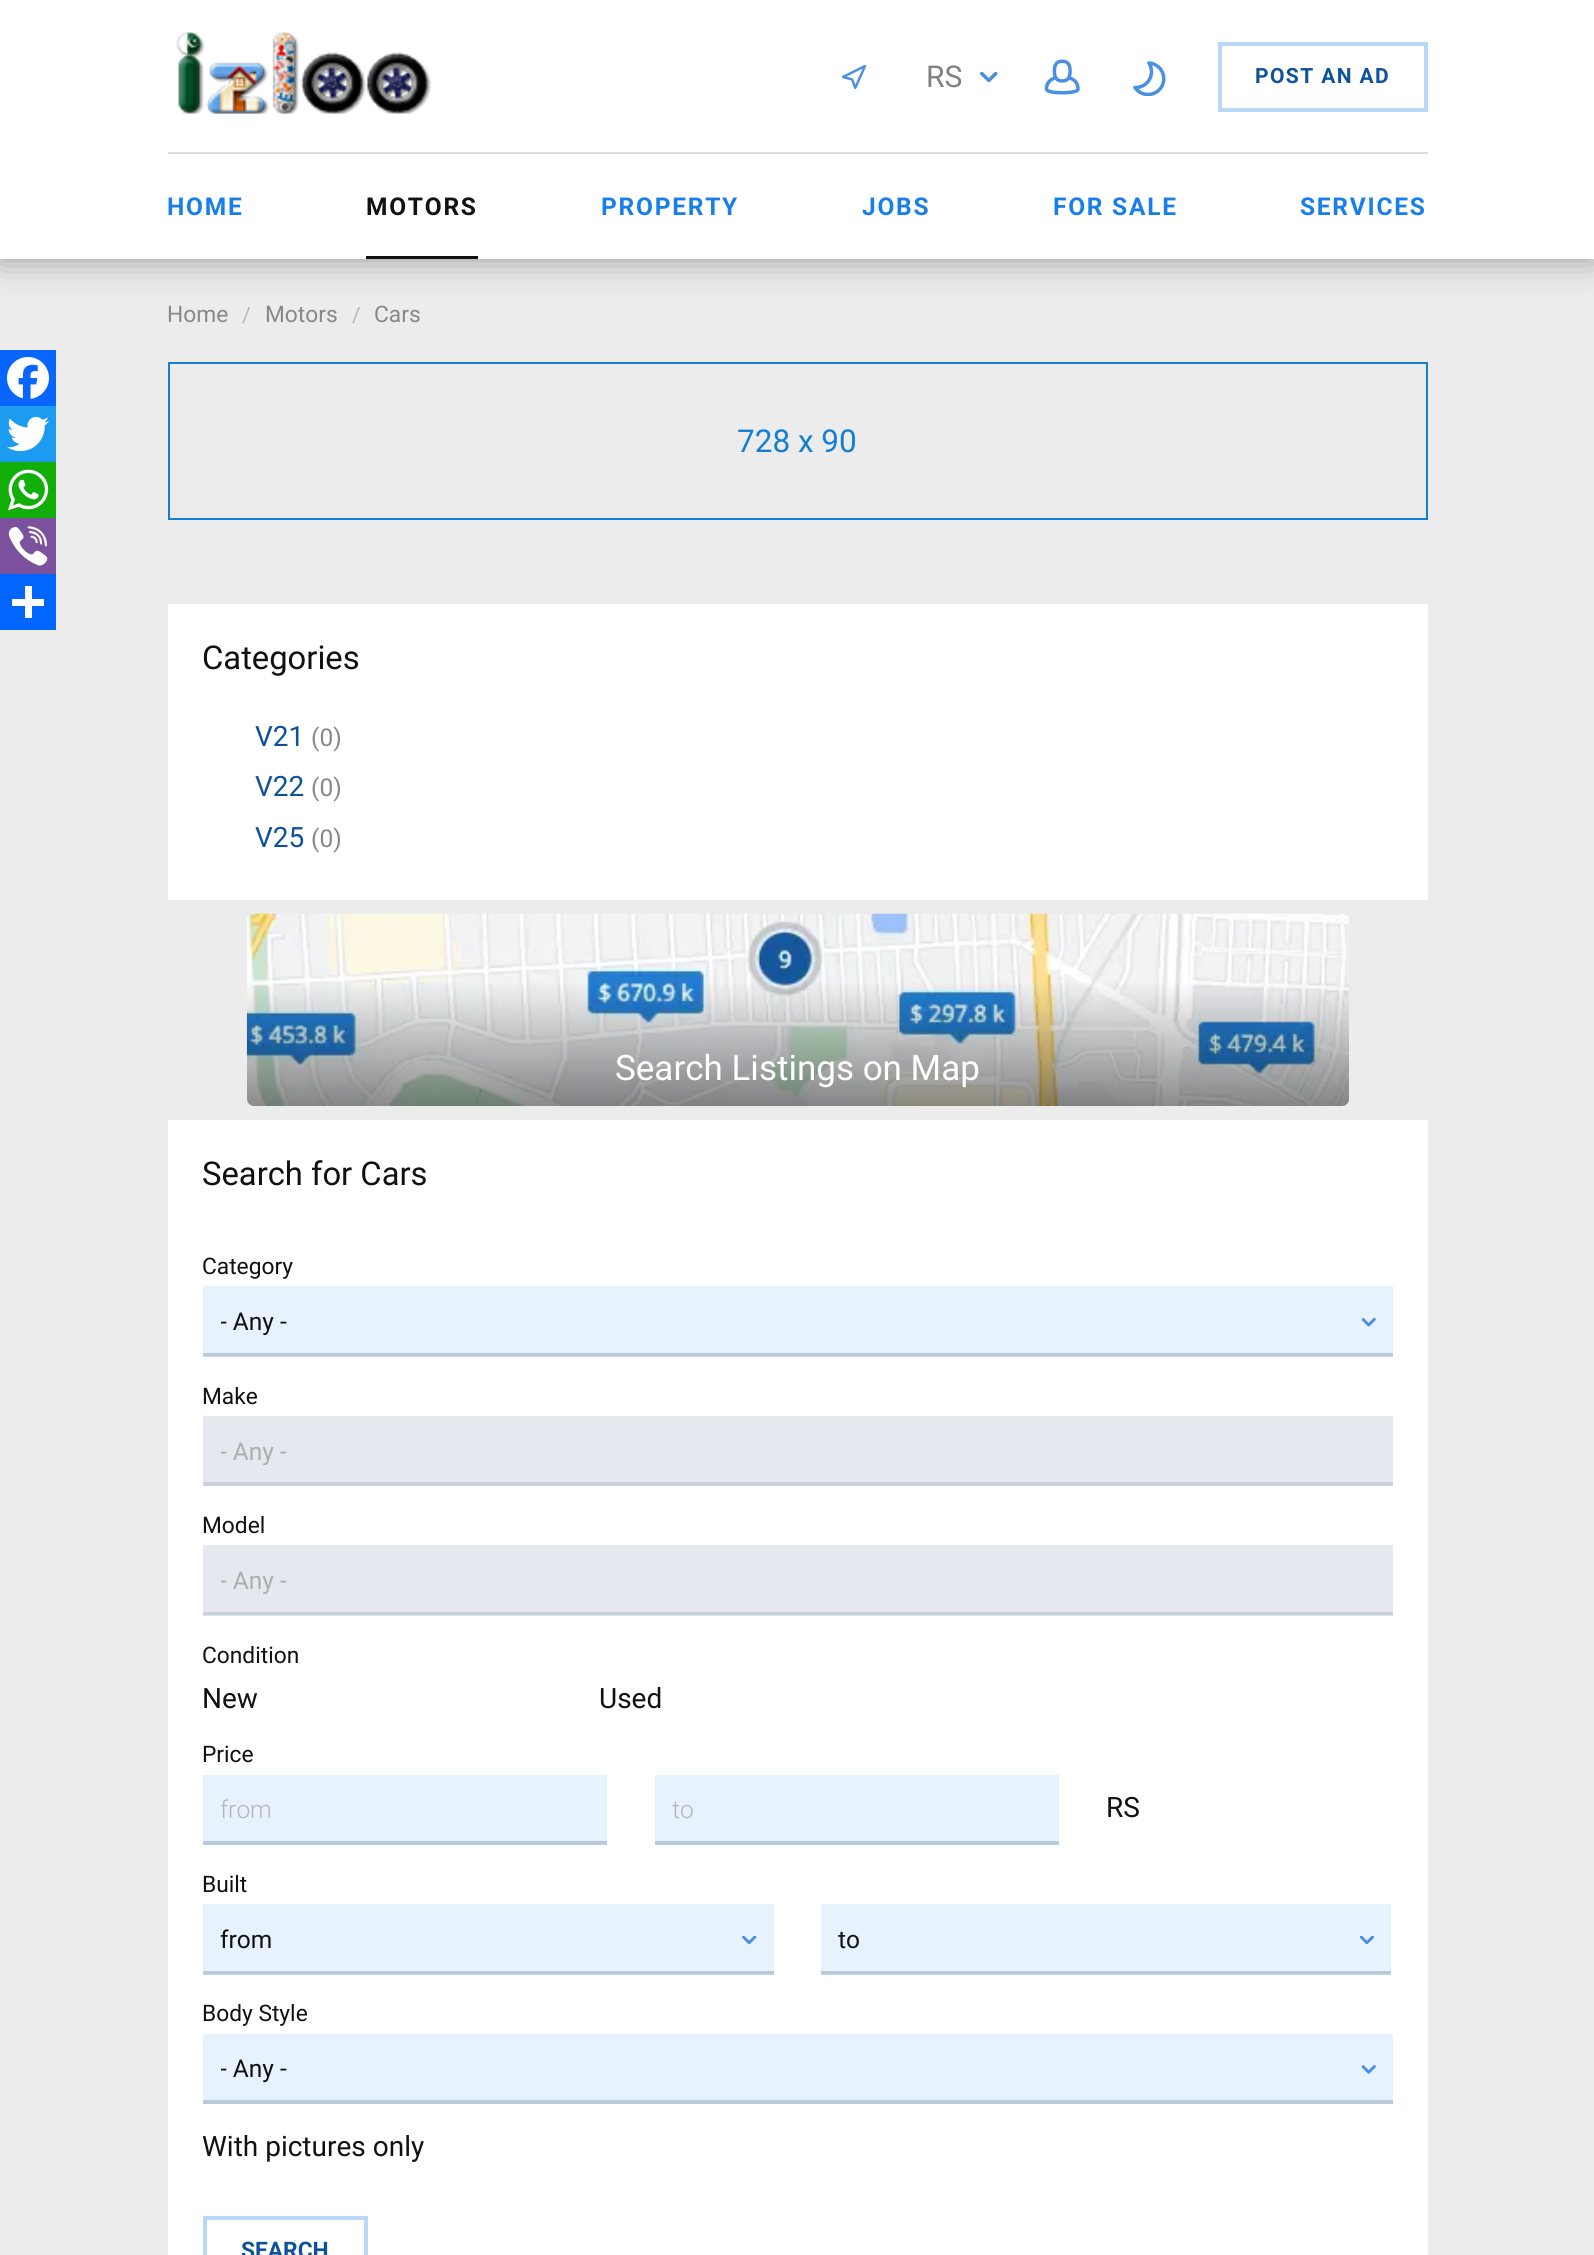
#include <cairo/cairo.h>
#include <math.h>
#include <stddef.h>


static void draw_spaced(cairo_t *cr, double x, double y, const char *s, double letter, double word) {
  cairo_move_to(cr, x, y);
  while (*s) {
    char ch[5] = {0};
    int n = 0;
    do ch[n++] = *s++; while ((*s & 0xC0) == 0x80);
    cairo_show_text(cr, ch);
    cairo_rel_move_to(cr, letter + word * (*ch == ' '), 0);
  }
}

static void rounded_rect(cairo_t *cr, double x, double y, double w, double h, double r) {
  cairo_new_sub_path(cr);
  cairo_arc(cr, x + w - r, y + h - r, r, 0, M_PI / 2);
  cairo_arc(cr, x + r, y + h - r, r, M_PI / 2, M_PI);
  cairo_arc(cr, x + r, y + r, r, M_PI, 1.5 * M_PI);
  cairo_arc(cr, x + w - r, y + r, r, 1.5 * M_PI, 2 * M_PI);
  cairo_close_path(cr);
}

static void draw_shadow(cairo_t *cr, double x, double y, double w, double h, double r, double blur, double alpha) {
  cairo_push_group_with_content(cr, CAIRO_CONTENT_ALPHA);
  cairo_set_operator(cr, CAIRO_OPERATOR_SOURCE);
  for (int i = 15; i >= -15 && fmin(w, h) + blur * i / 3 > 0; i -= 2) {
    double e = blur * i / 6;
    cairo_set_source_rgba(cr, 0, 0, 0, alpha * erfc((i - 1) / 8.5) / 2);
    rounded_rect(cr, x - e, y - e, w + 2 * e, h + 2 * e, fmax(0, fmin(r + e + blur * .6, fmin(w, h) / 2 + e)));
    cairo_fill(cr);
  }
  cairo_pattern_t *soft = cairo_pop_group(cr);
  cairo_mask(cr, soft);
  cairo_pattern_destroy(soft);
}

static void draw_image(cairo_t *cr, const char *path, double x, double y, double w, double h) {
  cairo_surface_t *image = cairo_image_surface_create_from_png(path);
  cairo_save(cr);
  cairo_set_source_surface(cr, image, x, y);
  cairo_rectangle(cr, x, y, w, h);
  cairo_fill(cr);
  cairo_restore(cr);
  cairo_surface_destroy(image);
}

static void draw(cairo_t *cr) {
  cairo_pattern_t *gradient;
  cairo_set_source_rgb(cr, 236 / 255.0, 236 / 255.0, 236 / 255.0);
  cairo_paint(cr);
  cairo_set_source_rgb(cr, 0, 0, 0);
  draw_shadow(cr, 0, 0, 1594, 259, 0, 17.5, 0.36);
  cairo_set_source_rgb(cr, 1, 1, 1);
  cairo_rectangle(cr, 0, 0, 1594, 259);
  cairo_fill(cr);
  draw_image(cr, "images/1.png", 176, 32, 256, 82);
  draw_image(cr, "images/2.png", 842, 65, 24, 24);
  draw_image(cr, "images/3.png", 980, 72, 18, 10);
  draw_image(cr, "images/4.png", 1044, 59, 36, 36);
  draw_image(cr, "images/5.png", 1133, 61, 33, 35);
  cairo_rectangle(cr, 1220, 44, 206, 66);
  cairo_set_source_rgb(cr, 185 / 255.0, 216 / 255.0, 249 / 255.0);
  cairo_set_line_width(cr, 4);
  cairo_stroke(cr);
  cairo_set_source_rgb(cr, 221 / 255.0, 221 / 255.0, 221 / 255.0);
  cairo_rectangle(cr, 168, 152, 1260, 2);
  cairo_fill(cr);
  cairo_set_source_rgb(cr, 17 / 255.0, 17 / 255.0, 17 / 255.0);
  cairo_rectangle(cr, 366, 256, 112, 3);
  cairo_fill(cr);
  cairo_set_source_rgb(cr, 8 / 255.0, 102 / 255.0, 1);
  cairo_rectangle(cr, 0, 350, 56, 56);
  cairo_fill(cr);
  draw_image(cr, "images/6.png", 7, 357, 42, 42);
  cairo_set_source_rgb(cr, 29 / 255.0, 155 / 255.0, 240 / 255.0);
  cairo_rectangle(cr, 0, 406, 56, 56);
  cairo_fill(cr);
  draw_image(cr, "images/7.png", 7, 416, 42, 36);
  cairo_set_source_rgb(cr, 18 / 255.0, 175 / 255.0, 10 / 255.0);
  cairo_rectangle(cr, 0, 462, 56, 56);
  cairo_fill(cr);
  draw_image(cr, "images/8.png", 8, 469, 41, 42);
  cairo_set_source_rgb(cr, 124 / 255.0, 82 / 255.0, 158 / 255.0);
  cairo_rectangle(cr, 0, 518, 56, 56);
  cairo_fill(cr);
  draw_image(cr, "images/9.png", 8, 526, 40, 40);
  cairo_set_source_rgb(cr, 1 / 255.0, 102 / 255.0, 1);
  cairo_rectangle(cr, 0, 574, 56, 56);
  cairo_fill(cr);
  cairo_set_source_rgb(cr, 1, 1, 1);
  cairo_rectangle(cr, 25, 586, 7, 32);
  cairo_fill(cr);
  cairo_rectangle(cr, 12, 599, 32, 7);
  cairo_fill(cr);
  cairo_rectangle(cr, 169, 363, 1258, 156);
  cairo_set_source_rgb(cr, 21 / 255.0, 126 / 255.0, 210 / 255.0);
  cairo_set_line_width(cr, 2);
  cairo_stroke(cr);
  cairo_set_source_rgb(cr, 1, 1, 1);
  cairo_rectangle(cr, 168, 604, 1260, 296);
  cairo_fill(cr);
  draw_image(cr, "images/10.png", 246, 913, 1103, 193);
  gradient = cairo_pattern_create_linear(798, 914, 798, 1106);
  cairo_pattern_add_color_stop_rgba(gradient, 0.35, 0, 0, 0, 0);
  cairo_pattern_add_color_stop_rgba(gradient, 1, 0, 0, 0, 0.45);
  cairo_set_source(cr, gradient);
  cairo_pattern_destroy(gradient);
  rounded_rect(cr, 247, 914, 1102, 192, 7);
  cairo_fill(cr);
  cairo_set_source_rgb(cr, 1, 1, 1);
  cairo_rectangle(cr, 168, 1120, 1260, 1135);
  cairo_fill(cr);
  cairo_set_source_rgb(cr, 219 / 255.0, 225 / 255.0, 232 / 255.0);
  cairo_rectangle(cr, 203, 1615, 1190, 1);
  cairo_fill(cr);
  cairo_set_source_rgb(cr, 203 / 255.0, 212 / 255.0, 222 / 255.0);
  cairo_rectangle(cr, 821, 1974, 570, 1);
  cairo_fill(cr);
  cairo_rectangle(cr, 203, 1974, 571, 1);
  cairo_fill(cr);
  cairo_rectangle(cr, 203, 1356, 1190, 1);
  cairo_fill(cr);
  cairo_set_source_rgb(cr, 231 / 255.0, 242 / 255.0, 1);
  cairo_rectangle(cr, 203, 1286, 1190, 67);
  cairo_fill(cr);
  cairo_set_source_rgb(cr, 185 / 255.0, 202 / 255.0, 222 / 255.0);
  cairo_rectangle(cr, 203, 1353, 1190, 3);
  cairo_fill(cr);
  draw_image(cr, "images/11.png", 1362, 1318, 14, 9);
  cairo_set_source_rgb(cr, 229 / 255.0, 233 / 255.0, 239 / 255.0);
  cairo_rectangle(cr, 203, 1416, 1190, 66);
  cairo_fill(cr);
  cairo_set_source_rgb(cr, 199 / 255.0, 208 / 255.0, 220 / 255.0);
  cairo_rectangle(cr, 203, 1482, 1190, 4);
  cairo_fill(cr);
  cairo_set_source_rgb(cr, 229 / 255.0, 233 / 255.0, 239 / 255.0);
  cairo_rectangle(cr, 203, 1545, 1190, 67);
  cairo_fill(cr);
  cairo_set_source_rgb(cr, 199 / 255.0, 208 / 255.0, 220 / 255.0);
  cairo_rectangle(cr, 203, 1612, 1190, 3);
  cairo_fill(cr);
  cairo_set_source_rgb(cr, 231 / 255.0, 242 / 255.0, 1);
  cairo_rectangle(cr, 203, 1775, 404, 66);
  cairo_fill(cr);
  cairo_set_source_rgb(cr, 185 / 255.0, 202 / 255.0, 222 / 255.0);
  cairo_rectangle(cr, 203, 1841, 404, 4);
  cairo_fill(cr);
  cairo_set_source_rgb(cr, 231 / 255.0, 242 / 255.0, 1);
  cairo_rectangle(cr, 655, 1775, 404, 66);
  cairo_fill(cr);
  cairo_set_source_rgb(cr, 185 / 255.0, 202 / 255.0, 222 / 255.0);
  cairo_rectangle(cr, 655, 1841, 404, 4);
  cairo_fill(cr);
  cairo_set_source_rgb(cr, 231 / 255.0, 242 / 255.0, 1);
  cairo_rectangle(cr, 203, 1904, 571, 67);
  cairo_fill(cr);
  cairo_set_source_rgb(cr, 185 / 255.0, 202 / 255.0, 222 / 255.0);
  cairo_rectangle(cr, 203, 1971, 571, 3);
  cairo_fill(cr);
  draw_image(cr, "images/12.png", 742, 1936, 15, 8);
  cairo_set_source_rgb(cr, 231 / 255.0, 242 / 255.0, 1);
  cairo_rectangle(cr, 821, 1904, 570, 67);
  cairo_fill(cr);
  cairo_set_source_rgb(cr, 185 / 255.0, 202 / 255.0, 222 / 255.0);
  cairo_rectangle(cr, 821, 1971, 570, 3);
  cairo_fill(cr);
  draw_image(cr, "images/13.png", 1360, 1936, 14, 8);
  cairo_set_source_rgb(cr, 231 / 255.0, 242 / 255.0, 1);
  cairo_rectangle(cr, 203, 2034, 1190, 66);
  cairo_fill(cr);
  draw_image(cr, "images/14.png", 1362, 2065, 14, 9);
  cairo_set_source_rgb(cr, 185 / 255.0, 202 / 255.0, 222 / 255.0);
  cairo_rectangle(cr, 203, 2100, 1190, 4);
  cairo_fill(cr);
  cairo_rectangle(cr, 205, 2218, 161, 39);
  cairo_set_source_rgb(cr, 185 / 255.0, 216 / 255.0, 249 / 255.0);
  cairo_set_line_width(cr, 4);
  cairo_stroke(cr);
  cairo_select_font_face(cr, "Roboto", CAIRO_FONT_SLANT_NORMAL, CAIRO_FONT_WEIGHT_NORMAL);
  cairo_set_font_size(cr, 30);
  cairo_set_source_rgb(cr, 128 / 255.0, 128 / 255.0, 128 / 255.0);
  cairo_move_to(cr, 926, 87);
  cairo_show_text(cr, "RS");
  cairo_select_font_face(cr, "Roboto", CAIRO_FONT_SLANT_NORMAL, CAIRO_FONT_WEIGHT_BOLD);
  cairo_set_font_size(cr, 21);
  cairo_set_source_rgb(cr, 13 / 255.0, 82 / 255.0, 155 / 255.0);
  draw_spaced(cr, 1255, 83, "POST AN AD", 1.4, 0);
  cairo_set_font_size(cr, 24.5);
  cairo_set_source_rgb(cr, 23 / 255.0, 126 / 255.0, 236 / 255.0);
  draw_spaced(cr, 167, 215, "HOME", 1.75, 0);
  cairo_set_source_rgb(cr, 17 / 255.0, 17 / 255.0, 17 / 255.0);
  draw_spaced(cr, 366, 215, "MOTORS", 1.75, 0);
  cairo_set_source_rgb(cr, 23 / 255.0, 126 / 255.0, 236 / 255.0);
  draw_spaced(cr, 601, 215, "PROPERTY", 1.75, 0);
  draw_spaced(cr, 862, 215, "JOBS", 1.75, 0);
  draw_spaced(cr, 1053, 215, "FOR SALE", 1.75, 0);
  draw_spaced(cr, 1300, 215, "SERVICES", 1.75, 0);
  cairo_select_font_face(cr, "Roboto", CAIRO_FONT_SLANT_NORMAL, CAIRO_FONT_WEIGHT_NORMAL);
  cairo_set_font_size(cr, 22.75);
  cairo_set_source_rgb(cr, 136 / 255.0, 136 / 255.0, 136 / 255.0);
  cairo_move_to(cr, 167, 322);
  cairo_show_text(cr, "Home");
  cairo_set_font_size(cr, 21);
  cairo_set_source_rgb(cr, 181 / 255.0, 181 / 255.0, 181 / 255.0);
  cairo_move_to(cr, 242, 322);
  cairo_show_text(cr, "/");
  cairo_set_font_size(cr, 22.75);
  cairo_set_source_rgb(cr, 136 / 255.0, 136 / 255.0, 136 / 255.0);
  cairo_move_to(cr, 265, 322);
  cairo_show_text(cr, "Motors");
  cairo_set_font_size(cr, 21);
  cairo_set_source_rgb(cr, 181 / 255.0, 181 / 255.0, 181 / 255.0);
  cairo_move_to(cr, 352, 322);
  cairo_show_text(cr, "/");
  cairo_set_font_size(cr, 22.75);
  cairo_set_source_rgb(cr, 136 / 255.0, 136 / 255.0, 136 / 255.0);
  cairo_move_to(cr, 374, 322);
  cairo_show_text(cr, "Cars");
  cairo_set_font_size(cr, 31.5);
  cairo_set_source_rgb(cr, 21 / 255.0, 126 / 255.0, 210 / 255.0);
  cairo_move_to(cr, 737, 452);
  cairo_show_text(cr, "728 x 90");
  cairo_set_font_size(cr, 32.75);
  cairo_set_source_rgb(cr, 17 / 255.0, 17 / 255.0, 17 / 255.0);
  cairo_move_to(cr, 202, 669);
  cairo_show_text(cr, "Categories");
  cairo_set_font_size(cr, 28);
  cairo_set_source_rgb(cr, 13 / 255.0, 82 / 255.0, 155 / 255.0);
  cairo_move_to(cr, 255, 746);
  cairo_show_text(cr, "V21");
  cairo_set_font_size(cr, 24.5);
  cairo_set_source_rgb(cr, 136 / 255.0, 136 / 255.0, 136 / 255.0);
  cairo_move_to(cr, 311, 746);
  cairo_show_text(cr, "(0)");
  cairo_set_font_size(cr, 28);
  cairo_set_source_rgb(cr, 13 / 255.0, 82 / 255.0, 155 / 255.0);
  cairo_move_to(cr, 255, 796);
  cairo_show_text(cr, "V22");
  cairo_set_font_size(cr, 24.5);
  cairo_set_source_rgb(cr, 136 / 255.0, 136 / 255.0, 136 / 255.0);
  cairo_move_to(cr, 311, 796);
  cairo_show_text(cr, "(0)");
  cairo_set_font_size(cr, 28);
  cairo_set_source_rgb(cr, 13 / 255.0, 82 / 255.0, 155 / 255.0);
  cairo_move_to(cr, 255, 847);
  cairo_show_text(cr, "V25");
  cairo_set_font_size(cr, 24.5);
  cairo_set_source_rgb(cr, 136 / 255.0, 136 / 255.0, 136 / 255.0);
  cairo_move_to(cr, 311, 847);
  cairo_show_text(cr, "(0)");
  cairo_set_font_size(cr, 35);
  cairo_set_source_rgb(cr, 1, 1, 1);
  cairo_move_to(cr, 615, 1080);
  cairo_show_text(cr, "Search Listings on Map");
  cairo_set_font_size(cr, 32.75);
  cairo_set_source_rgb(cr, 17 / 255.0, 17 / 255.0, 17 / 255.0);
  cairo_move_to(cr, 202, 1185);
  cairo_show_text(cr, "Search for Cars");
  cairo_set_font_size(cr, 22.75);
  cairo_move_to(cr, 202, 1274);
  cairo_show_text(cr, "Category");
  cairo_save(cr);
  cairo_rectangle(cr, 221, 1307, 1123, 28);
  cairo_clip(cr);
  cairo_set_font_size(cr, 24.5);
  cairo_move_to(cr, 220, 1330);
  cairo_show_text(cr, "- Any -");
  cairo_restore(cr);
  cairo_move_to(cr, 202, 1404);
  cairo_show_text(cr, "Make");
  cairo_save(cr);
  cairo_rectangle(cr, 221, 1437, 1123, 28);
  cairo_clip(cr);
  cairo_set_font_size(cr, 24.5);
  cairo_set_source_rgb(cr, 173 / 255.0, 173 / 255.0, 173 / 255.0);
  cairo_move_to(cr, 220, 1460);
  cairo_show_text(cr, "- Any -");
  cairo_restore(cr);
  cairo_move_to(cr, 202, 1533);
  cairo_show_text(cr, "Model");
  cairo_save(cr);
  cairo_rectangle(cr, 221, 1566, 1123, 28);
  cairo_clip(cr);
  cairo_set_font_size(cr, 24.5);
  cairo_set_source_rgb(cr, 173 / 255.0, 173 / 255.0, 173 / 255.0);
  cairo_move_to(cr, 220, 1589);
  cairo_show_text(cr, "- Any -");
  cairo_restore(cr);
  cairo_move_to(cr, 202, 1663);
  cairo_show_text(cr, "Condition");
  cairo_set_font_size(cr, 28);
  cairo_move_to(cr, 202, 1708);
  cairo_show_text(cr, "New");
  cairo_move_to(cr, 599, 1708);
  cairo_show_text(cr, "Used");
  cairo_set_font_size(cr, 22.75);
  cairo_move_to(cr, 202, 1762);
  cairo_show_text(cr, "Price");
  cairo_select_font_face(cr, "Roboto Light", CAIRO_FONT_SLANT_NORMAL, CAIRO_FONT_WEIGHT_NORMAL);
  cairo_set_font_size(cr, 24.5);
  cairo_set_source_rgb(cr, 181 / 255.0, 181 / 255.0, 181 / 255.0);
  cairo_move_to(cr, 220, 1818);
  cairo_show_text(cr, "from");
  cairo_move_to(cr, 672, 1818);
  cairo_show_text(cr, "to");
  cairo_select_font_face(cr, "Roboto", CAIRO_FONT_SLANT_NORMAL, CAIRO_FONT_WEIGHT_NORMAL);
  cairo_set_font_size(cr, 28);
  cairo_set_source_rgb(cr, 17 / 255.0, 17 / 255.0, 17 / 255.0);
  cairo_move_to(cr, 1106, 1817);
  cairo_show_text(cr, "RS");
  cairo_set_font_size(cr, 22.75);
  cairo_move_to(cr, 202, 1892);
  cairo_show_text(cr, "Built");
  cairo_set_font_size(cr, 24.5);
  cairo_move_to(cr, 220, 1948);
  cairo_show_text(cr, "from");
  cairo_move_to(cr, 838, 1948);
  cairo_show_text(cr, "to");
  cairo_set_font_size(cr, 22.75);
  cairo_move_to(cr, 202, 2021);
  cairo_show_text(cr, "Body Style");
  cairo_save(cr);
  cairo_rectangle(cr, 221, 2055, 1123, 28);
  cairo_clip(cr);
  cairo_set_font_size(cr, 24.5);
  cairo_move_to(cr, 220, 2077);
  cairo_show_text(cr, "- Any -");
  cairo_restore(cr);
  cairo_set_font_size(cr, 28);
  cairo_move_to(cr, 202, 2156);
  cairo_show_text(cr, "With pictures only");
  cairo_select_font_face(cr, "Roboto", CAIRO_FONT_SLANT_NORMAL, CAIRO_FONT_WEIGHT_BOLD);
  cairo_set_font_size(cr, 22.75);
  cairo_set_source_rgb(cr, 13 / 255.0, 82 / 255.0, 155 / 255.0);
  cairo_move_to(cr, 241, 2258);
  cairo_show_text(cr, "SEARCH");
}

int main(void) {
  cairo_surface_t *surface = cairo_image_surface_create(CAIRO_FORMAT_RGB24, 1594, 2255);
  cairo_t *cr = cairo_create(surface);
  cairo_font_options_t *options = cairo_font_options_create();
  cairo_font_options_set_hint_metrics(options, CAIRO_HINT_METRICS_OFF);
  cairo_font_options_set_hint_style(options, CAIRO_HINT_STYLE_NONE);
  cairo_set_font_options(cr, options);
  cairo_set_miter_limit(cr, 4);
  draw(cr);
  cairo_surface_write_to_png(surface, "out.png");
  cairo_font_options_destroy(options);
  cairo_destroy(cr);
  cairo_surface_destroy(surface);
  return 0;
}
